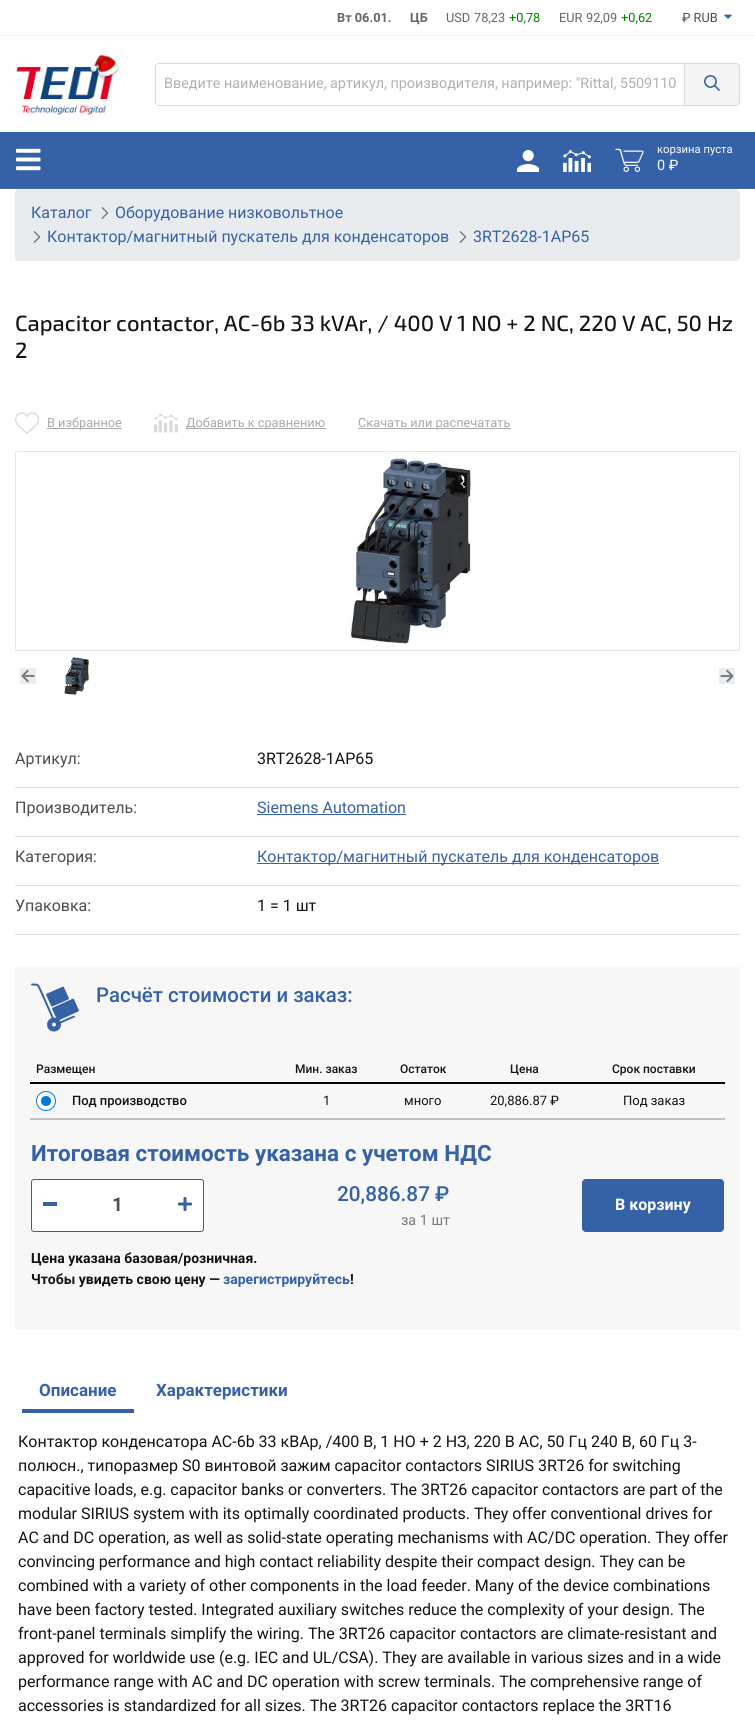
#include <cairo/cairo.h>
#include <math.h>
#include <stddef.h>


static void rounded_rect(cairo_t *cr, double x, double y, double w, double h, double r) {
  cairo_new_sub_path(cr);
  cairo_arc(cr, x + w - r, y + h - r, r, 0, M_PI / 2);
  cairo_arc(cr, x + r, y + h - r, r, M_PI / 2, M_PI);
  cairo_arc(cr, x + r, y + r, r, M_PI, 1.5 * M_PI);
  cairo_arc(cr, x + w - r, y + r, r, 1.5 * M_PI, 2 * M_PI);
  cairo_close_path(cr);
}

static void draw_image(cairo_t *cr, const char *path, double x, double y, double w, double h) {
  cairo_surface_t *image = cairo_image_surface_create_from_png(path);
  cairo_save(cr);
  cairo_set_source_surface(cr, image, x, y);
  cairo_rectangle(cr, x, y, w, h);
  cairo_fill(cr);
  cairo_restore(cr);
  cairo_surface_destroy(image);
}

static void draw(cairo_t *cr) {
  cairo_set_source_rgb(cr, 1, 1, 1);
  cairo_paint(cr);
  cairo_set_source_rgb(cr, 241 / 255.0, 242 / 255.0, 245 / 255.0);
  cairo_rectangle(cr, 0, 35, 755, 1);
  cairo_fill(cr);
  draw_image(cr, "images/1.png", 724, 14, 8, 5);
  draw_image(cr, "images/2.png", 16, 54, 103, 61);
  cairo_set_source_rgb(cr, 212 / 255.0, 217 / 255.0, 222 / 255.0);
  cairo_set_fill_rule(cr, CAIRO_FILL_RULE_EVEN_ODD);
  cairo_new_path(cr);
  cairo_move_to(cr, 159, 63);
  cairo_line_to(cr, 684, 63);
  cairo_line_to(cr, 684, 106);
  cairo_line_to(cr, 159, 106);
  cairo_curve_to(cr, 157, 106, 155, 104, 155, 102);
  cairo_line_to(cr, 155, 67);
  cairo_curve_to(cr, 155, 65, 157, 63, 159, 63);
  cairo_close_path(cr);
  cairo_move_to(cr, 159, 64);
  cairo_line_to(cr, 684, 64);
  cairo_line_to(cr, 684, 105);
  cairo_line_to(cr, 159, 105);
  cairo_curve_to(cr, 157, 105, 156, 104, 156, 102);
  cairo_line_to(cr, 156, 67);
  cairo_curve_to(cr, 156, 65, 157, 64, 159, 64);
  cairo_close_path(cr);
  cairo_fill(cr);
  cairo_set_source_rgb(cr, 245 / 255.0, 245 / 255.0, 245 / 255.0);
  cairo_new_path(cr);
  cairo_move_to(cr, 684.5, 63.5);
  cairo_line_to(cr, 736, 63.5);
  cairo_curve_to(cr, 738, 63.5, 739.5, 65, 739.5, 67);
  cairo_line_to(cr, 739.5, 102);
  cairo_curve_to(cr, 739.5, 104, 738, 105.5, 736, 105.5);
  cairo_line_to(cr, 684.5, 105.5);
  cairo_close_path(cr);
  cairo_fill_preserve(cr);
  cairo_set_source_rgb(cr, 212 / 255.0, 217 / 255.0, 222 / 255.0);
  cairo_set_line_width(cr, 1);
  cairo_stroke(cr);
  draw_image(cr, "images/3.png", 704, 75, 16, 16);
  cairo_set_source_rgb(cr, 53 / 255.0, 97 / 255.0, 166 / 255.0);
  cairo_rectangle(cr, 0, 132, 755, 56);
  cairo_fill(cr);
  draw_image(cr, "images/4.png", 16, 148, 25, 23);
  draw_image(cr, "images/5.png", 517, 150, 22, 22);
  draw_image(cr, "images/6.png", 563, 150, 28, 22);
  draw_image(cr, "images/7.png", 615, 148, 29, 24);
  cairo_set_source_rgb(cr, 71 / 255.0, 107 / 255.0, 165 / 255.0);
  cairo_rectangle(cr, 0, 188, 755, 1);
  cairo_fill(cr);
  cairo_set_source_rgb(cr, 233 / 255.0, 236 / 255.0, 239 / 255.0);
  rounded_rect(cr, 15, 189, 725, 72, 4);
  cairo_fill(cr);
  draw_image(cr, "images/8.png", 101, 207, 8, 12);
  draw_image(cr, "images/8.png", 33, 231, 8, 12);
  draw_image(cr, "images/8.png", 459, 231, 8, 12);
  draw_image(cr, "images/9.png", 15, 412, 24, 22);
  cairo_set_source_rgb(cr, 169 / 255.0, 169 / 255.0, 169 / 255.0);
  cairo_rectangle(cr, 47, 428, 75, 1);
  cairo_fill(cr);
  draw_image(cr, "images/10.png", 154, 413, 24, 20);
  cairo_rectangle(cr, 186, 428, 140, 1);
  cairo_fill(cr);
  cairo_rectangle(cr, 358, 428, 153, 1);
  cairo_fill(cr);
  cairo_set_source_rgb(cr, 229 / 255.0, 229 / 255.0, 229 / 255.0);
  cairo_new_path(cr);
  cairo_move_to(cr, 18, 451);
  cairo_line_to(cr, 16, 452);
  cairo_line_to(cr, 15, 453);
  cairo_line_to(cr, 15, 651);
  cairo_line_to(cr, 740, 651);
  cairo_line_to(cr, 740, 453);
  cairo_line_to(cr, 739, 452);
  cairo_line_to(cr, 737, 451);
  cairo_close_path(cr);
  cairo_move_to(cr, 16, 452);
  cairo_line_to(cr, 16, 650);
  cairo_line_to(cr, 739, 650);
  cairo_line_to(cr, 739, 452);
  cairo_close_path(cr);
  cairo_fill(cr);
  draw_image(cr, "images/11.png", 348, 452, 126, 195);
  cairo_set_source_rgb(cr, 235 / 255.0, 238 / 255.0, 241 / 255.0);
  cairo_rectangle(cr, 20, 668, 16, 16);
  cairo_fill(cr);
  draw_image(cr, "images/12.png", 21, 669, 14, 14);
  draw_image(cr, "images/13.png", 64, 657, 25, 38);
  cairo_rectangle(cr, 719, 668, 16, 16);
  cairo_fill(cr);
  draw_image(cr, "images/14.png", 720, 669, 14, 14);
  cairo_set_source_rgb(cr, 224 / 255.0, 224 / 255.0, 224 / 255.0);
  cairo_rectangle(cr, 15, 787, 725, 1);
  cairo_fill(cr);
  cairo_rectangle(cr, 15, 836, 725, 1);
  cairo_fill(cr);
  cairo_set_source_rgb(cr, 53 / 255.0, 97 / 255.0, 166 / 255.0);
  cairo_rectangle(cr, 257, 814, 149, 1);
  cairo_fill(cr);
  cairo_set_source_rgb(cr, 224 / 255.0, 224 / 255.0, 224 / 255.0);
  cairo_rectangle(cr, 15, 885, 725, 1);
  cairo_fill(cr);
  cairo_set_source_rgb(cr, 53 / 255.0, 97 / 255.0, 166 / 255.0);
  cairo_rectangle(cr, 257, 863, 402, 1);
  cairo_fill(cr);
  cairo_set_source_rgb(cr, 224 / 255.0, 224 / 255.0, 224 / 255.0);
  cairo_rectangle(cr, 15, 934, 725, 1);
  cairo_fill(cr);
  cairo_set_source_rgb(cr, 247 / 255.0, 247 / 255.0, 247 / 255.0);
  cairo_rectangle(cr, 15, 967, 725, 363);
  cairo_fill(cr);
  draw_image(cr, "images/15.png", 31, 983, 48, 49);
  cairo_set_source_rgb(cr, 0, 0, 0);
  cairo_rectangle(cr, 30, 1082, 695, 2);
  cairo_fill(cr);
  cairo_set_source_rgb(cr, 194 / 255.0, 194 / 255.0, 194 / 255.0);
  cairo_rectangle(cr, 30, 1118, 695, 2);
  cairo_fill(cr);
  cairo_set_source_rgb(cr, 1, 1, 1);
  cairo_arc(cr, 46, 1101, 9.5, 0, 2 * M_PI);
  cairo_fill_preserve(cr);
  cairo_set_source_rgb(cr, 0, 122 / 255.0, 217 / 255.0);
  cairo_stroke(cr);
  cairo_arc(cr, 46, 1101, 5, 0, 2 * M_PI);
  cairo_fill(cr);
  cairo_set_source_rgb(cr, 1, 1, 1);
  rounded_rect(cr, 31.5, 1179.5, 172, 52, 2.5);
  cairo_fill_preserve(cr);
  cairo_set_source_rgb(cr, 53 / 255.0, 97 / 255.0, 166 / 255.0);
  cairo_stroke(cr);
  cairo_rectangle(cr, 43, 1202, 14, 4);
  cairo_fill(cr);
  draw_image(cr, "images/16.png", 178, 1197, 14, 14);
  rounded_rect(cr, 582.5, 1179.5, 141, 52, 3.5);
  cairo_fill_preserve(cr);
  cairo_stroke(cr);
  cairo_rectangle(cr, 22, 1409, 112, 4);
  cairo_fill(cr);
  cairo_select_font_face(cr, "Roboto", CAIRO_FONT_SLANT_NORMAL, CAIRO_FONT_WEIGHT_BOLD);
  cairo_set_font_size(cr, 12.75);
  cairo_set_source_rgb(cr, 102 / 255.0, 102 / 255.0, 102 / 255.0);
  cairo_move_to(cr, 337, 22);
  cairo_show_text(cr, "Вт 06.01.");
  cairo_move_to(cr, 410, 22);
  cairo_show_text(cr, "ЦБ");
  cairo_select_font_face(cr, "Roboto", CAIRO_FONT_SLANT_NORMAL, CAIRO_FONT_WEIGHT_NORMAL);
  cairo_move_to(cr, 446, 22);
  cairo_show_text(cr, "USD");
  cairo_move_to(cr, 474, 22);
  cairo_show_text(cr, "78,23");
  cairo_set_source_rgb(cr, 0, 128 / 255.0, 0);
  cairo_move_to(cr, 509, 22);
  cairo_show_text(cr, "+0,78");
  cairo_set_source_rgb(cr, 102 / 255.0, 102 / 255.0, 102 / 255.0);
  cairo_move_to(cr, 559, 22);
  cairo_show_text(cr, "EUR");
  cairo_move_to(cr, 586, 22);
  cairo_show_text(cr, "92,09");
  cairo_set_source_rgb(cr, 0, 128 / 255.0, 0);
  cairo_move_to(cr, 621, 22);
  cairo_show_text(cr, "+0,62");
  cairo_set_source_rgb(cr, 73 / 255.0, 80 / 255.0, 87 / 255.0);
  cairo_move_to(cr, 682, 22);
  cairo_show_text(cr, "₽ RUB");
  cairo_set_font_size(cr, 14.4);
  cairo_set_source_rgb(cr, 176 / 255.0, 176 / 255.0, 176 / 255.0);
  cairo_move_to(cr, 164, 88);
  cairo_show_text(cr, "Введите наименование, артикул, производителя, например: \"Rittal, 5509110");
  cairo_set_font_size(cr, 11.25);
  cairo_set_source_rgb(cr, 1, 1, 1);
  cairo_move_to(cr, 657, 153);
  cairo_show_text(cr, "корзина пуста");
  cairo_set_font_size(cr, 14.4);
  cairo_move_to(cr, 657, 170);
  cairo_show_text(cr, "0 ₽");
  cairo_set_font_size(cr, 16);
  cairo_set_source_rgb(cr, 53 / 255.0, 97 / 255.0, 166 / 255.0);
  cairo_move_to(cr, 31, 218);
  cairo_show_text(cr, "Каталог");
  cairo_move_to(cr, 115, 218);
  cairo_show_text(cr, "Оборудование низковольтное");
  cairo_move_to(cr, 47, 242);
  cairo_show_text(cr, "Контактор/магнитный пускатель для конденсаторов");
  cairo_move_to(cr, 473, 242);
  cairo_show_text(cr, "3RT2628-1AP65");
  cairo_select_font_face(cr, "Exo 2 Medium", CAIRO_FONT_SLANT_NORMAL, CAIRO_FONT_WEIGHT_NORMAL);
  cairo_set_font_size(cr, 22);
  cairo_set_source_rgb(cr, 19 / 255.0, 19 / 255.0, 19 / 255.0);
  cairo_move_to(cr, 15, 331);
  cairo_show_text(cr, "Capacitor contactor, AC-6b 33 kVAr, / 400 V 1 NO + 2 NC, 220 V AC, 50 Hz");
  cairo_move_to(cr, 15, 358);
  cairo_show_text(cr, "2");
  cairo_select_font_face(cr, "Roboto", CAIRO_FONT_SLANT_NORMAL, CAIRO_FONT_WEIGHT_NORMAL);
  cairo_set_font_size(cr, 12.75);
  cairo_set_source_rgb(cr, 169 / 255.0, 169 / 255.0, 169 / 255.0);
  cairo_move_to(cr, 47, 427);
  cairo_show_text(cr, "В избранное");
  cairo_move_to(cr, 186, 427);
  cairo_show_text(cr, "Добавить к сравнению");
  cairo_move_to(cr, 358, 427);
  cairo_show_text(cr, "Скачать или распечатать");
  cairo_set_font_size(cr, 16);
  cairo_set_source_rgb(cr, 76 / 255.0, 76 / 255.0, 76 / 255.0);
  cairo_move_to(cr, 15, 764);
  cairo_show_text(cr, "Артикул:");
  cairo_set_source_rgb(cr, 19 / 255.0, 19 / 255.0, 19 / 255.0);
  cairo_move_to(cr, 257, 764);
  cairo_show_text(cr, "3RT2628-1AP65");
  cairo_set_source_rgb(cr, 76 / 255.0, 76 / 255.0, 76 / 255.0);
  cairo_move_to(cr, 15, 813);
  cairo_show_text(cr, "Производитель:");
  cairo_set_source_rgb(cr, 53 / 255.0, 97 / 255.0, 166 / 255.0);
  cairo_move_to(cr, 257, 813);
  cairo_show_text(cr, "Siemens Automation");
  cairo_set_source_rgb(cr, 76 / 255.0, 76 / 255.0, 76 / 255.0);
  cairo_move_to(cr, 15, 862);
  cairo_show_text(cr, "Категория:");
  cairo_set_source_rgb(cr, 53 / 255.0, 97 / 255.0, 166 / 255.0);
  cairo_move_to(cr, 257, 862);
  cairo_show_text(cr, "Контактор/магнитный пускатель для конденсаторов");
  cairo_set_source_rgb(cr, 76 / 255.0, 76 / 255.0, 76 / 255.0);
  cairo_move_to(cr, 15, 911);
  cairo_show_text(cr, "Упаковка:");
  cairo_set_source_rgb(cr, 19 / 255.0, 19 / 255.0, 19 / 255.0);
  cairo_move_to(cr, 257, 911);
  cairo_show_text(cr, "1 = 1 шт");
  cairo_select_font_face(cr, "Roboto Medium", CAIRO_FONT_SLANT_NORMAL, CAIRO_FONT_WEIGHT_NORMAL);
  cairo_set_font_size(cr, 20.4);
  cairo_set_source_rgb(cr, 53 / 255.0, 97 / 255.0, 166 / 255.0);
  cairo_move_to(cr, 96, 1002);
  cairo_show_text(cr, "Расчёт стоимости и заказ:");
  cairo_set_font_size(cr, 12);
  cairo_set_source_rgb(cr, 19 / 255.0, 19 / 255.0, 19 / 255.0);
  cairo_move_to(cr, 36, 1073);
  cairo_show_text(cr, "Размещен");
  cairo_move_to(cr, 295, 1073);
  cairo_show_text(cr, "Мин. заказ");
  cairo_move_to(cr, 400, 1073);
  cairo_show_text(cr, "Остаток");
  cairo_move_to(cr, 510, 1073);
  cairo_show_text(cr, "Цена");
  cairo_move_to(cr, 612, 1073);
  cairo_show_text(cr, "Срок поставки");
  cairo_set_font_size(cr, 13);
  cairo_move_to(cr, 72, 1105);
  cairo_show_text(cr, "Под производство");
  cairo_select_font_face(cr, "Roboto", CAIRO_FONT_SLANT_NORMAL, CAIRO_FONT_WEIGHT_NORMAL);
  cairo_move_to(cr, 323, 1105);
  cairo_show_text(cr, "1");
  cairo_move_to(cr, 404, 1105);
  cairo_show_text(cr, "много");
  cairo_move_to(cr, 490, 1105);
  cairo_show_text(cr, "20,886.87 ₽");
  cairo_move_to(cr, 623, 1105);
  cairo_show_text(cr, "Под заказ");
  cairo_select_font_face(cr, "Roboto", CAIRO_FONT_SLANT_NORMAL, CAIRO_FONT_WEIGHT_BOLD);
  cairo_set_font_size(cr, 22.4);
  cairo_set_source_rgb(cr, 53 / 255.0, 97 / 255.0, 166 / 255.0);
  cairo_move_to(cr, 31, 1161);
  cairo_show_text(cr, "Итоговая стоимость указана с учетом НДС");
  cairo_set_font_size(cr, 19);
  cairo_set_source_rgb(cr, 73 / 255.0, 80 / 255.0, 87 / 255.0);
  cairo_move_to(cr, 112, 1211);
  cairo_show_text(cr, "1");
  cairo_select_font_face(cr, "Roboto Medium", CAIRO_FONT_SLANT_NORMAL, CAIRO_FONT_WEIGHT_NORMAL);
  cairo_set_font_size(cr, 20.75);
  cairo_set_source_rgb(cr, 53 / 255.0, 97 / 255.0, 166 / 255.0);
  cairo_move_to(cr, 337, 1201);
  cairo_show_text(cr, "20,886.87 ₽");
  cairo_select_font_face(cr, "Roboto", CAIRO_FONT_SLANT_NORMAL, CAIRO_FONT_WEIGHT_NORMAL);
  cairo_set_font_size(cr, 14.4);
  cairo_set_source_rgb(cr, 122 / 255.0, 122 / 255.0, 122 / 255.0);
  cairo_move_to(cr, 401, 1225);
  cairo_show_text(cr, "за 1 шт");
  cairo_select_font_face(cr, "Roboto", CAIRO_FONT_SLANT_NORMAL, CAIRO_FONT_WEIGHT_BOLD);
  cairo_set_font_size(cr, 16);
  cairo_set_source_rgb(cr, 1, 1, 1);
  cairo_move_to(cr, 615, 1210);
  cairo_show_text(cr, "В корзину");
  cairo_set_font_size(cr, 14);
  cairo_set_source_rgb(cr, 19 / 255.0, 19 / 255.0, 19 / 255.0);
  cairo_move_to(cr, 31, 1263);
  cairo_show_text(cr, "Цена указана базовая/розничная.");
  cairo_move_to(cr, 31, 1284);
  cairo_show_text(cr, "Чтобы увидеть свою цену —");
  cairo_set_source_rgb(cr, 53 / 255.0, 97 / 255.0, 166 / 255.0);
  cairo_move_to(cr, 223, 1284);
  cairo_show_text(cr, "зарегистрируйтесь");
  cairo_set_source_rgb(cr, 19 / 255.0, 19 / 255.0, 19 / 255.0);
  cairo_move_to(cr, 350, 1284);
  cairo_show_text(cr, "!");
  cairo_set_font_size(cr, 17);
  cairo_set_source_rgb(cr, 53 / 255.0, 97 / 255.0, 166 / 255.0);
  cairo_move_to(cr, 39, 1396);
  cairo_show_text(cr, "Описание");
  cairo_move_to(cr, 156, 1396);
  cairo_show_text(cr, "Характеристики");
  cairo_select_font_face(cr, "Roboto", CAIRO_FONT_SLANT_NORMAL, CAIRO_FONT_WEIGHT_NORMAL);
  cairo_set_font_size(cr, 16);
  cairo_set_source_rgb(cr, 19 / 255.0, 19 / 255.0, 19 / 255.0);
  cairo_move_to(cr, 18, 1447);
  cairo_show_text(cr, "Контактор конденсатора AC-6b 33 кВАр, /400 В, 1 НО + 2 НЗ, 220 В AC, 50 Гц 240 В, 60 Гц 3-");
  cairo_move_to(cr, 18, 1471);
  cairo_show_text(cr, "полюсн., типоразмер S0 винтовой зажим capacitor contactors SIRIUS 3RT26 for switching");
  cairo_move_to(cr, 18, 1495);
  cairo_show_text(cr, "capacitive loads, e.g. capacitor banks or converters. The 3RT26 capacitor contactors are part of the");
  cairo_move_to(cr, 18, 1519);
  cairo_show_text(cr, "modular SIRIUS system with its optimally coordinated products. They offer conventional drives for");
  cairo_move_to(cr, 18, 1543);
  cairo_show_text(cr, "AC and DC operation, as well as solid-state operating mechanisms with AC/DC operation. They offer");
  cairo_move_to(cr, 18, 1567);
  cairo_show_text(cr, "convincing performance and high contact reliability despite their compact design. They can be");
  cairo_move_to(cr, 18, 1591);
  cairo_show_text(cr, "combined with a variety of other components in the load feeder. Many of the device combinations");
  cairo_move_to(cr, 18, 1615);
  cairo_show_text(cr, "have been factory tested. Integrated auxiliary switches reduce the complexity of your design. The");
  cairo_move_to(cr, 18, 1639);
  cairo_show_text(cr, "front-panel terminals simplify the wiring. The 3RT26 capacitor contactors are climate-resistant and");
  cairo_move_to(cr, 18, 1663);
  cairo_show_text(cr, "approved for worldwide use (e.g. IEC and UL/CSA). They are available in various sizes and in a wide");
  cairo_move_to(cr, 18, 1687);
  cairo_show_text(cr, "performance range with AC and DC operation with screw terminals. The comprehensive range of");
  cairo_move_to(cr, 18, 1711);
  cairo_show_text(cr, "accessories is standardized for all sizes. The 3RT26 capacitor contactors replace the 3RT16");
}

int main(void) {
  cairo_surface_t *surface = cairo_image_surface_create(CAIRO_FORMAT_RGB24, 755, 1729);
  cairo_t *cr = cairo_create(surface);
  cairo_font_options_t *options = cairo_font_options_create();
  cairo_font_options_set_hint_metrics(options, CAIRO_HINT_METRICS_OFF);
  cairo_font_options_set_hint_style(options, CAIRO_HINT_STYLE_NONE);
  cairo_set_font_options(cr, options);
  cairo_set_miter_limit(cr, 4);
  draw(cr);
  cairo_surface_write_to_png(surface, "out.png");
  cairo_font_options_destroy(options);
  cairo_destroy(cr);
  cairo_surface_destroy(surface);
  return 0;
}
